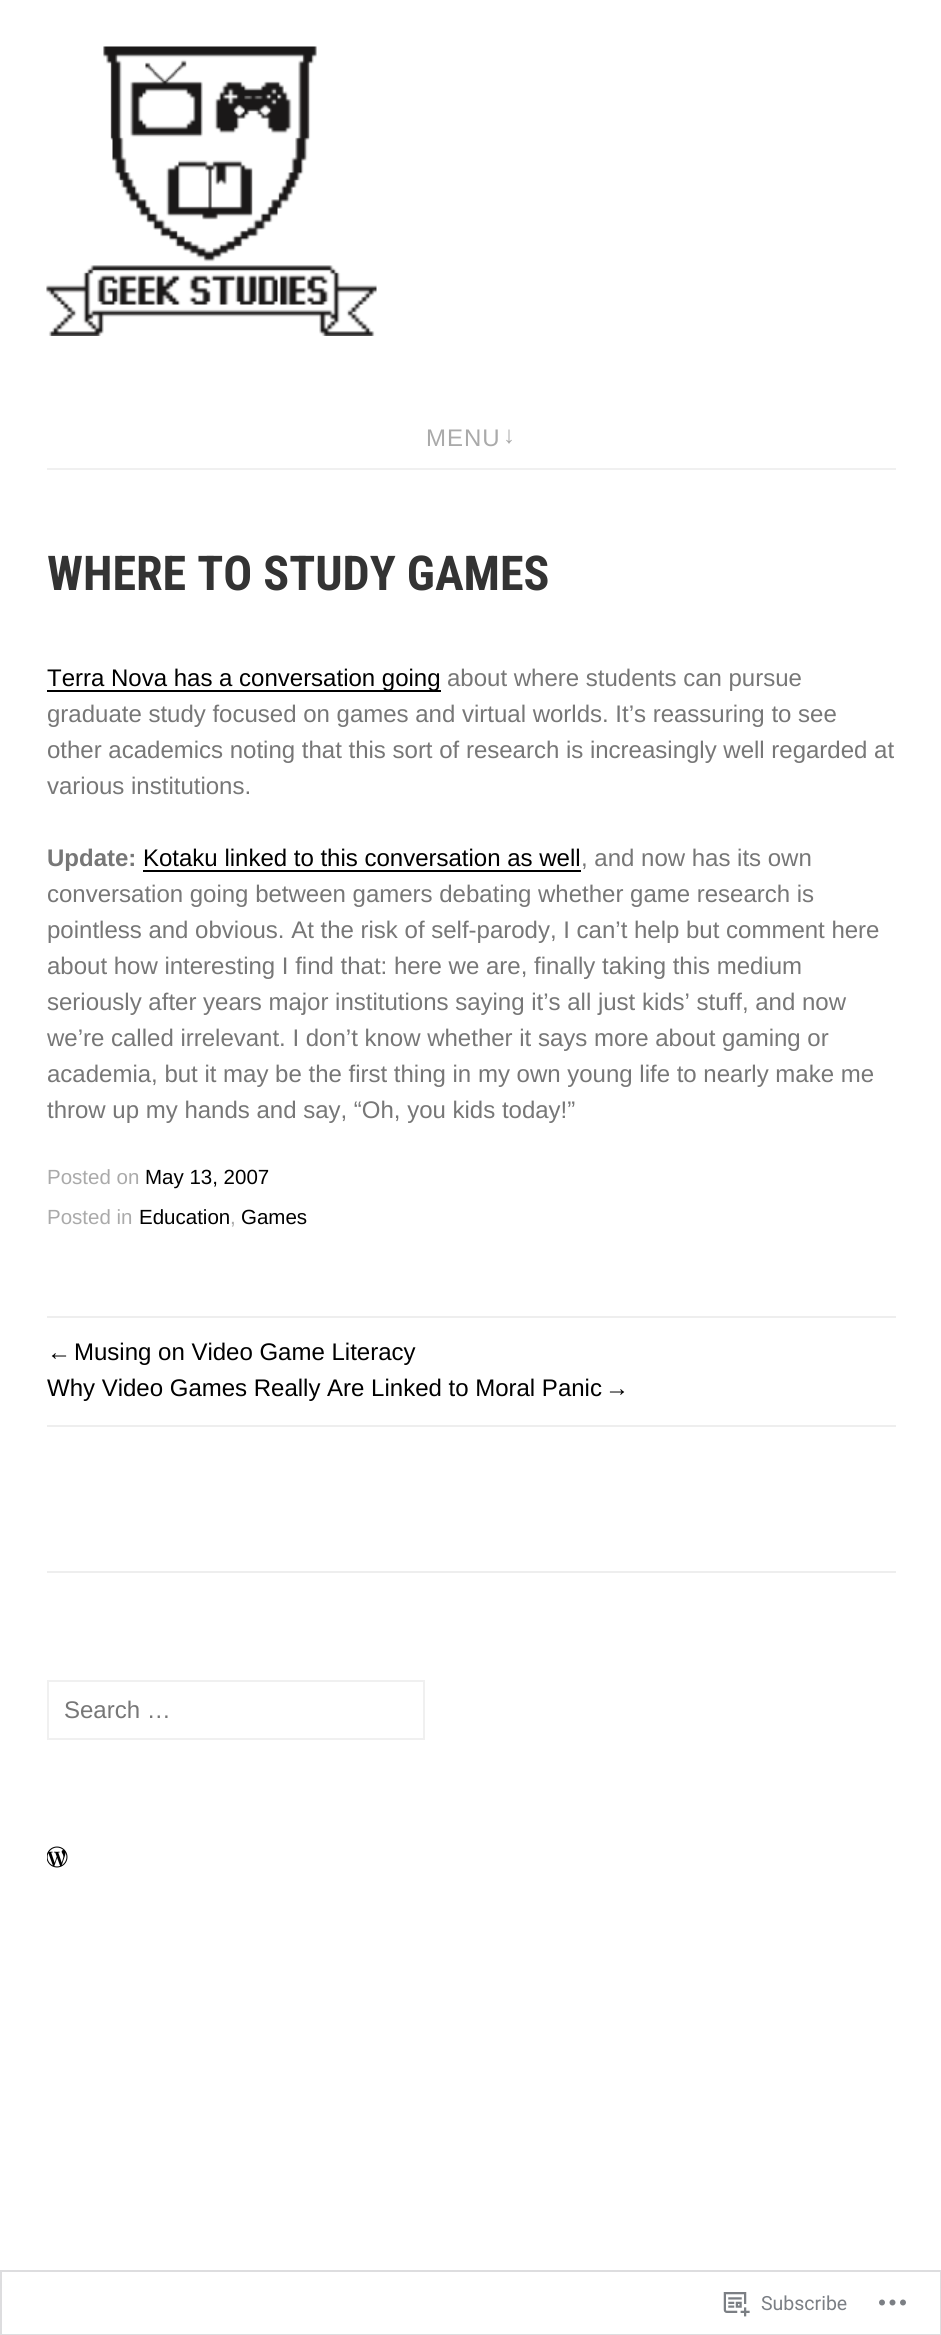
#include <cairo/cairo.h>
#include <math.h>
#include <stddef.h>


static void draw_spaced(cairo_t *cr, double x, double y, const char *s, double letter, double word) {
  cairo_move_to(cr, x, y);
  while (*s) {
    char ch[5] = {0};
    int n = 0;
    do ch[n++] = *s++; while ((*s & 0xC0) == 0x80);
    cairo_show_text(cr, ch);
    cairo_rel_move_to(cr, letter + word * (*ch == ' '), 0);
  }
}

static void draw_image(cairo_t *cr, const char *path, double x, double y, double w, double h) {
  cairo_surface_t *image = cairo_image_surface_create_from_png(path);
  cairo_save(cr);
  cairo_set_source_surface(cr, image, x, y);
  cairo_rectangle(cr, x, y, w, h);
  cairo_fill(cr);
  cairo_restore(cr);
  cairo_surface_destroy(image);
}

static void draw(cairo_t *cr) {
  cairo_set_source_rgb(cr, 1, 1, 1);
  cairo_paint(cr);
  draw_image(cr, "images/1.png", 46, 46, 331, 290);
  cairo_set_source_rgb(cr, 240 / 255.0, 240 / 255.0, 240 / 255.0);
  cairo_rectangle(cr, 47, 468, 849, 2);
  cairo_fill(cr);
  cairo_set_source_rgb(cr, 0, 0, 0);
  cairo_rectangle(cr, 47, 690, 394, 2);
  cairo_fill(cr);
  cairo_rectangle(cr, 143, 870, 438, 2);
  cairo_fill(cr);
  cairo_set_source_rgb(cr, 238 / 255.0, 238 / 255.0, 238 / 255.0);
  cairo_rectangle(cr, 47, 1316, 849, 2);
  cairo_fill(cr);
  cairo_rectangle(cr, 47, 1425, 849, 2);
  cairo_fill(cr);
  cairo_rectangle(cr, 47, 1571, 849, 2);
  cairo_fill(cr);
  cairo_rectangle(cr, 48, 1681, 376, 58);
  cairo_set_source_rgb(cr, 240 / 255.0, 240 / 255.0, 240 / 255.0);
  cairo_stroke(cr);
  draw_image(cr, "images/2.png", 47, 1846, 21, 22);
  cairo_rectangle(cr, 1, 2271, 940, 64);
  cairo_set_source_rgb(cr, 221 / 255.0, 221 / 255.0, 223 / 255.0);
  cairo_stroke(cr);
  draw_image(cr, "images/3.png", 723, 2292, 27, 25);
  draw_image(cr, "images/4.png", 879, 2299, 27, 7);
  cairo_select_font_face(cr, "Arimo", CAIRO_FONT_SLANT_NORMAL, CAIRO_FONT_WEIGHT_NORMAL);
  cairo_set_font_size(cr, 24);
  cairo_set_source_rgb(cr, 170 / 255.0, 170 / 255.0, 170 / 255.0);
  draw_spaced(cr, 426, 446, "MENU", 1, 0);
  draw_spaced(cr, 503, 443, "↓", 1, 0);
  cairo_select_font_face(cr, "Roboto Condensed", CAIRO_FONT_SLANT_NORMAL, CAIRO_FONT_WEIGHT_BOLD);
  cairo_set_font_size(cr, 48);
  cairo_set_source_rgb(cr, 51 / 255.0, 51 / 255.0, 51 / 255.0);
  cairo_move_to(cr, 47, 590);
  cairo_show_text(cr, "WHERE TO STUDY GAMES");
  cairo_select_font_face(cr, "Arimo", CAIRO_FONT_SLANT_NORMAL, CAIRO_FONT_WEIGHT_NORMAL);
  cairo_set_font_size(cr, 24);
  cairo_set_source_rgb(cr, 0, 0, 0);
  cairo_move_to(cr, 47, 686);
  cairo_show_text(cr, "Terra Nova has a conversation going");
  cairo_set_source_rgb(cr, 119 / 255.0, 119 / 255.0, 119 / 255.0);
  cairo_move_to(cr, 447, 686);
  cairo_show_text(cr, "about where students can pursue");
  cairo_move_to(cr, 47, 722);
  cairo_show_text(cr, "graduate study focused on games and virtual worlds. It’s reassuring to see");
  cairo_move_to(cr, 47, 758);
  cairo_show_text(cr, "other academics noting that this sort of research is increasingly well regarded at");
  cairo_move_to(cr, 47, 794);
  cairo_show_text(cr, "various institutions.");
  cairo_select_font_face(cr, "Arimo", CAIRO_FONT_SLANT_NORMAL, CAIRO_FONT_WEIGHT_BOLD);
  cairo_move_to(cr, 47, 866);
  cairo_show_text(cr, "Update:");
  cairo_select_font_face(cr, "Arimo", CAIRO_FONT_SLANT_NORMAL, CAIRO_FONT_WEIGHT_NORMAL);
  cairo_set_source_rgb(cr, 0, 0, 0);
  cairo_move_to(cr, 143, 866);
  cairo_show_text(cr, "Kotaku linked to this conversation as well");
  cairo_set_source_rgb(cr, 119 / 255.0, 119 / 255.0, 119 / 255.0);
  cairo_move_to(cr, 581, 866);
  cairo_show_text(cr, ", and now has its own");
  cairo_move_to(cr, 47, 902);
  cairo_show_text(cr, "conversation going between gamers debating whether game research is");
  cairo_move_to(cr, 47, 938);
  cairo_show_text(cr, "pointless and obvious. At the risk of self-parody, I can’t help but comment here");
  cairo_move_to(cr, 47, 974);
  cairo_show_text(cr, "about how interesting I find that: here we are, finally taking this medium");
  cairo_move_to(cr, 47, 1010);
  cairo_show_text(cr, "seriously after years major institutions saying it’s all just kids’ stuff, and now");
  cairo_move_to(cr, 47, 1046);
  cairo_show_text(cr, "we’re called irrelevant. I don’t know whether it says more about gaming or");
  cairo_move_to(cr, 47, 1082);
  cairo_show_text(cr, "academia, but it may be the first thing in my own young life to nearly make me");
  cairo_move_to(cr, 47, 1118);
  cairo_show_text(cr, "throw up my hands and say, “Oh, you kids today!”");
  cairo_set_font_size(cr, 20.5);
  cairo_set_source_rgb(cr, 170 / 255.0, 170 / 255.0, 170 / 255.0);
  cairo_move_to(cr, 47, 1184);
  cairo_show_text(cr, "Posted on");
  cairo_set_source_rgb(cr, 0, 0, 0);
  cairo_move_to(cr, 145, 1184);
  cairo_show_text(cr, "May 13, 2007");
  cairo_set_source_rgb(cr, 170 / 255.0, 170 / 255.0, 170 / 255.0);
  cairo_move_to(cr, 47, 1224);
  cairo_show_text(cr, "Posted in");
  cairo_set_source_rgb(cr, 0, 0, 0);
  cairo_move_to(cr, 139, 1224);
  cairo_show_text(cr, "Education");
  cairo_set_source_rgb(cr, 170 / 255.0, 170 / 255.0, 170 / 255.0);
  cairo_move_to(cr, 230, 1224);
  cairo_show_text(cr, ",");
  cairo_set_source_rgb(cr, 0, 0, 0);
  cairo_move_to(cr, 241, 1224);
  cairo_show_text(cr, "Games");
  cairo_select_font_face(cr, "Liberation Sans", CAIRO_FONT_SLANT_NORMAL, CAIRO_FONT_WEIGHT_NORMAL);
  cairo_set_font_size(cr, 24);
  cairo_move_to(cr, 47, 1360);
  cairo_show_text(cr, "←");
  cairo_select_font_face(cr, "Arimo", CAIRO_FONT_SLANT_NORMAL, CAIRO_FONT_WEIGHT_NORMAL);
  cairo_move_to(cr, 74, 1360);
  cairo_show_text(cr, "Musing on Video Game Literacy");
  cairo_move_to(cr, 47, 1396);
  cairo_show_text(cr, "Why Video Games Really Are Linked to Moral Panic");
  cairo_select_font_face(cr, "Liberation Sans", CAIRO_FONT_SLANT_NORMAL, CAIRO_FONT_WEIGHT_NORMAL);
  cairo_move_to(cr, 605, 1396);
  cairo_show_text(cr, "→");
  cairo_select_font_face(cr, "Arimo", CAIRO_FONT_SLANT_NORMAL, CAIRO_FONT_WEIGHT_NORMAL);
  cairo_set_source_rgb(cr, 119 / 255.0, 119 / 255.0, 119 / 255.0);
  cairo_move_to(cr, 64, 1718);
  cairo_show_text(cr, "Search …");
  cairo_select_font_face(cr, "Roboto", CAIRO_FONT_SLANT_NORMAL, CAIRO_FONT_WEIGHT_NORMAL);
  cairo_set_font_size(cr, 19.5);
  cairo_set_source_rgb(cr, 123 / 255.0, 127 / 255.0, 133 / 255.0);
  cairo_move_to(cr, 761, 2310);
  cairo_show_text(cr, "Subscribe");
}

int main(void) {
  cairo_surface_t *surface = cairo_image_surface_create(CAIRO_FORMAT_RGB24, 941, 2335);
  cairo_t *cr = cairo_create(surface);
  cairo_font_options_t *options = cairo_font_options_create();
  cairo_font_options_set_hint_metrics(options, CAIRO_HINT_METRICS_OFF);
  cairo_font_options_set_hint_style(options, CAIRO_HINT_STYLE_NONE);
  cairo_set_font_options(cr, options);
  cairo_set_miter_limit(cr, 4);
  draw(cr);
  cairo_surface_write_to_png(surface, "out.png");
  cairo_font_options_destroy(options);
  cairo_destroy(cr);
  cairo_surface_destroy(surface);
  return 0;
}
